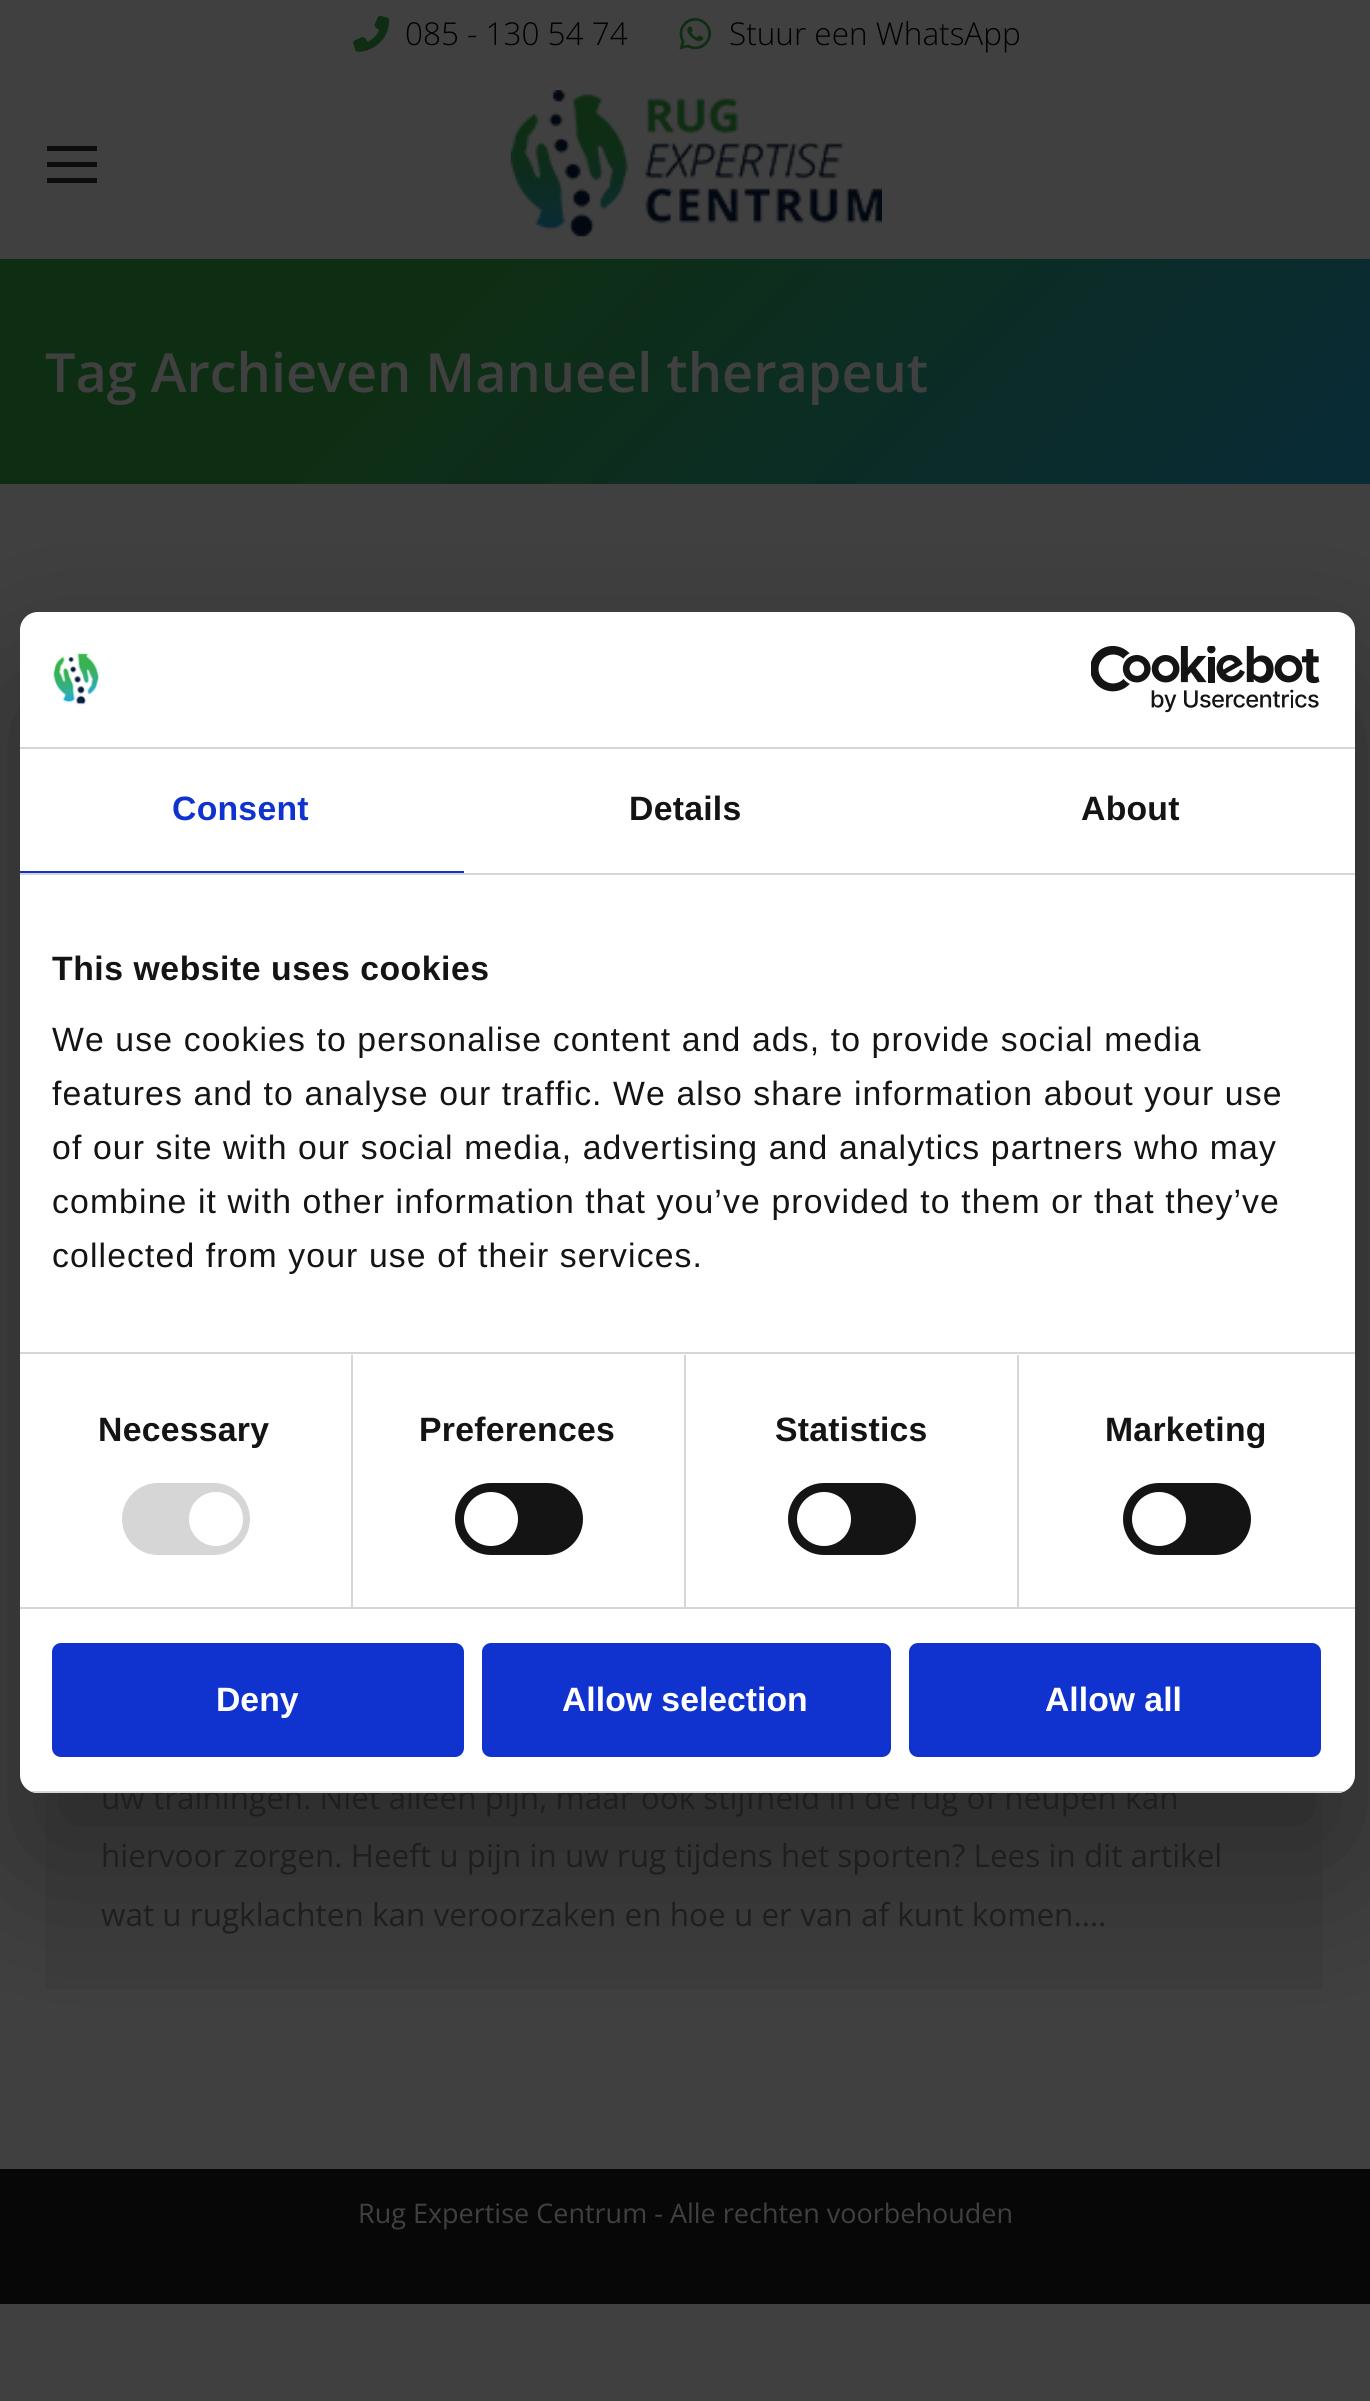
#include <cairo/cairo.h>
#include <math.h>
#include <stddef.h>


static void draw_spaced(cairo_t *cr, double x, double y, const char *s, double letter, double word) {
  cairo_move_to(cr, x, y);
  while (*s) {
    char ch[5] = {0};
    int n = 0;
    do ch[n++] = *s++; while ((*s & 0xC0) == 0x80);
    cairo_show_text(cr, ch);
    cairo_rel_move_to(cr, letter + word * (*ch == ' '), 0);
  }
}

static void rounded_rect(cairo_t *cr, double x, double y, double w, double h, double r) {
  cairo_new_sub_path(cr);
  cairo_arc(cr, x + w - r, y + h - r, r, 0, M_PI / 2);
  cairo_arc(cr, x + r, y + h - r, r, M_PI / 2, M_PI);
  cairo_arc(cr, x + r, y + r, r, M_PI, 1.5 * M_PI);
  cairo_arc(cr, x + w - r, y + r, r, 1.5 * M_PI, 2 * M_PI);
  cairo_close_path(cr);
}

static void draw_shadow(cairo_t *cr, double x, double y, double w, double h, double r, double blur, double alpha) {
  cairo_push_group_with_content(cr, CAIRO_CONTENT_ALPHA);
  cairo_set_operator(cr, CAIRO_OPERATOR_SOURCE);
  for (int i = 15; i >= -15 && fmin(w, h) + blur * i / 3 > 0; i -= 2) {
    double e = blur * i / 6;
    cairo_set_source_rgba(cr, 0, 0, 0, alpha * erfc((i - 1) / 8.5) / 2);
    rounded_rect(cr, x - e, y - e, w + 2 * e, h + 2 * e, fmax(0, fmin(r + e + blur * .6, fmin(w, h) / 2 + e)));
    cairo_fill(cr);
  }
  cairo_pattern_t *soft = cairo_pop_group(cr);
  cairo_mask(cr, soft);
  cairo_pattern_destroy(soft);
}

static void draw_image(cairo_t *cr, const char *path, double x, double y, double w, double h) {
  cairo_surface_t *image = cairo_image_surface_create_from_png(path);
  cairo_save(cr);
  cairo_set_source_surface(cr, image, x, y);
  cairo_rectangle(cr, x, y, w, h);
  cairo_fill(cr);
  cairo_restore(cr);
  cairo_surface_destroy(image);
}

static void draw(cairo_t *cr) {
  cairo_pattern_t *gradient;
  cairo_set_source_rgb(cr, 64 / 255.0, 64 / 255.0, 64 / 255.0);
  cairo_paint(cr);
  draw_image(cr, "images/1.png", 353, 15, 37, 37);
  draw_image(cr, "images/2.png", 679, 18, 32, 32);
  cairo_set_source_rgb(cr, 13 / 255.0, 13 / 255.0, 13 / 255.0);
  cairo_rectangle(cr, 47, 146, 50, 5);
  cairo_fill(cr);
  cairo_rectangle(cr, 47, 162, 50, 5);
  cairo_fill(cr);
  cairo_rectangle(cr, 47, 178, 50, 5);
  cairo_fill(cr);
  draw_image(cr, "images/3.png", 510, 90, 372, 147);
  gradient = cairo_pattern_create_linear(286, -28, 1084, 770);
  cairo_pattern_add_color_stop_rgba(gradient, 0.3, 14 / 255.0, 46 / 255.0, 19 / 255.0, 1);
  cairo_pattern_add_color_stop_rgba(gradient, 1, 9 / 255.0, 43 / 255.0, 55 / 255.0, 1);
  cairo_set_source(cr, gradient);
  cairo_pattern_destroy(gradient);
  cairo_rectangle(cr, 0, 259, 1370, 225);
  cairo_fill(cr);
  cairo_set_source_rgb(cr, 61 / 255.0, 61 / 255.0, 61 / 255.0);
  cairo_rectangle(cr, 45, 1793, 1278, 196);
  cairo_fill(cr);
  cairo_set_source_rgb(cr, 7 / 255.0, 7 / 255.0, 8 / 255.0);
  cairo_rectangle(cr, 0, 2169, 1370, 135);
  cairo_fill(cr);
  cairo_set_source_rgb(cr, 0, 0, 0);
  draw_shadow(cr, 20, 684, 1335, 1181, 18, 76.5, 0.3);
  cairo_select_font_face(cr, "Open Sans Light", CAIRO_FONT_SLANT_NORMAL, CAIRO_FONT_WEIGHT_NORMAL);
  cairo_set_font_size(cr, 31.5);
  cairo_set_source_rgb(cr, 0, 0, 0);
  cairo_move_to(cr, 405, 45);
  cairo_show_text(cr, "085 - 130 54 74");
  cairo_move_to(cr, 729, 45);
  cairo_show_text(cr, "Stuur een WhatsApp");
  cairo_select_font_face(cr, "Open Sans SemiBold", CAIRO_FONT_SLANT_NORMAL, CAIRO_FONT_WEIGHT_NORMAL);
  cairo_set_font_size(cr, 54);
  cairo_set_source_rgb(cr, 64 / 255.0, 64 / 255.0, 64 / 255.0);
  cairo_move_to(cr, 45, 392);
  cairo_show_text(cr, "Tag Archieven Manueel therapeut");
  cairo_select_font_face(cr, "Open Sans", CAIRO_FONT_SLANT_NORMAL, CAIRO_FONT_WEIGHT_NORMAL);
  cairo_set_font_size(cr, 31.5);
  cairo_set_source_rgb(cr, 30 / 255.0, 30 / 255.0, 30 / 255.0);
  cairo_move_to(cr, 101, 1809);
  cairo_show_text(cr, "uw trainingen. Niet alleen pijn, maar ook stijfheid in de rug of heupen kan");
  cairo_move_to(cr, 101, 1867);
  cairo_show_text(cr, "hiervoor zorgen. Heeft u pijn in uw rug tijdens het sporten? Lees in dit artikel");
  cairo_move_to(cr, 101, 1926);
  cairo_show_text(cr, "wat u rugklachten kan veroorzaken en hoe u er van af kunt komen.…");
  cairo_set_font_size(cr, 27);
  cairo_set_source_rgb(cr, 64 / 255.0, 64 / 255.0, 64 / 255.0);
  cairo_move_to(cr, 358, 2223);
  cairo_show_text(cr, "Rug Expertise Centrum - Alle rechten voorbehouden");
  cairo_set_source_rgb(cr, 1, 1, 1);
  rounded_rect(cr, 20, 612, 1335, 1181, 18);
  cairo_fill(cr);
  cairo_set_source_rgb(cr, 214 / 255.0, 214 / 255.0, 214 / 255.0);
  cairo_rectangle(cr, 20, 747, 1335, 2);
  cairo_fill(cr);
  draw_image(cr, "images/4.png", 53, 653, 47, 52);
  draw_image(cr, "images/5.png", 1091, 646, 229, 67);
  cairo_rectangle(cr, 20, 873, 1335, 2);
  cairo_fill(cr);
  cairo_set_source_rgb(cr, 16 / 255.0, 50 / 255.0, 207 / 255.0);
  cairo_rectangle(cr, 20, 871, 444, 2);
  cairo_fill(cr);
  cairo_select_font_face(cr, "Liberation Sans", CAIRO_FONT_SLANT_NORMAL, CAIRO_FONT_WEIGHT_BOLD);
  cairo_set_font_size(cr, 33.75);
  draw_spaced(cr, 172, 820, "Consent", 0.25, 0);
  cairo_set_source_rgb(cr, 20 / 255.0, 20 / 255.0, 20 / 255.0);
  draw_spaced(cr, 629, 820, "Details", 0.25, 0);
  draw_spaced(cr, 1081, 820, "About", 0.25, 0);
  cairo_set_source_rgb(cr, 214 / 255.0, 214 / 255.0, 214 / 255.0);
  cairo_rectangle(cr, 20, 1352, 1335, 2);
  cairo_fill(cr);
  cairo_set_source_rgb(cr, 20 / 255.0, 20 / 255.0, 20 / 255.0);
  draw_spaced(cr, 52, 980, "This website uses cookies", 0.55, 0);
  cairo_select_font_face(cr, "Liberation Sans", CAIRO_FONT_SLANT_NORMAL, CAIRO_FONT_WEIGHT_NORMAL);
  draw_spaced(cr, 52, 1051, "We use cookies to personalise content and ads, to provide social media", 1.12, 0);
  draw_spaced(cr, 52, 1105, "features and to analyse our traffic. We also share information about your use", 1.12, 0);
  draw_spaced(cr, 52, 1159, "of our site with our social media, advertising and analytics partners who may", 1.12, 0);
  draw_spaced(cr, 52, 1213, "combine it with other information that you’ve provided to them or that they’ve", 1.12, 0);
  draw_spaced(cr, 52, 1267, "collected from your use of their services.", 1.12, 0);
  cairo_set_source_rgb(cr, 214 / 255.0, 214 / 255.0, 214 / 255.0);
  cairo_rectangle(cr, 20, 1607, 1335, 2);
  cairo_fill(cr);
  cairo_rectangle(cr, 351, 1355, 2, 252);
  cairo_fill(cr);
  cairo_select_font_face(cr, "Liberation Sans", CAIRO_FONT_SLANT_NORMAL, CAIRO_FONT_WEIGHT_BOLD);
  cairo_set_source_rgb(cr, 20 / 255.0, 20 / 255.0, 20 / 255.0);
  draw_spaced(cr, 98, 1441, "Necessary", 0.25, 0);
  cairo_set_source_rgb(cr, 214 / 255.0, 214 / 255.0, 214 / 255.0);
  rounded_rect(cr, 122, 1483, 128, 72, 36);
  cairo_fill(cr);
  cairo_set_source_rgb(cr, 1, 1, 1);
  cairo_arc(cr, 216, 1519, 27, 0, 2 * M_PI);
  cairo_fill(cr);
  cairo_set_source_rgb(cr, 214 / 255.0, 214 / 255.0, 214 / 255.0);
  cairo_rectangle(cr, 684, 1355, 2, 252);
  cairo_fill(cr);
  cairo_set_source_rgb(cr, 20 / 255.0, 20 / 255.0, 20 / 255.0);
  draw_spaced(cr, 419, 1441, "Preferences", 0.25, 0);
  rounded_rect(cr, 455, 1483, 128, 72, 36);
  cairo_fill(cr);
  cairo_set_source_rgb(cr, 1, 1, 1);
  cairo_arc(cr, 491, 1519, 27, 0, 2 * M_PI);
  cairo_fill(cr);
  cairo_set_source_rgb(cr, 214 / 255.0, 214 / 255.0, 214 / 255.0);
  cairo_rectangle(cr, 1017, 1355, 2, 252);
  cairo_fill(cr);
  cairo_set_source_rgb(cr, 20 / 255.0, 20 / 255.0, 20 / 255.0);
  draw_spaced(cr, 775, 1441, "Statistics", 0.25, 0);
  rounded_rect(cr, 788, 1483, 128, 72, 36);
  cairo_fill(cr);
  cairo_set_source_rgb(cr, 1, 1, 1);
  cairo_arc(cr, 824, 1519, 27, 0, 2 * M_PI);
  cairo_fill(cr);
  cairo_set_source_rgb(cr, 20 / 255.0, 20 / 255.0, 20 / 255.0);
  draw_spaced(cr, 1105, 1441, "Marketing", 0.25, 0);
  rounded_rect(cr, 1123, 1483, 128, 72, 36);
  cairo_fill(cr);
  cairo_set_source_rgb(cr, 1, 1, 1);
  cairo_arc(cr, 1159, 1519, 27, 0, 2 * M_PI);
  cairo_fill(cr);
  cairo_save(cr);
  rounded_rect(cr, 20, 612, 1335, 1181, 18);
  cairo_clip(cr);
  cairo_set_source_rgb(cr, 214 / 255.0, 214 / 255.0, 214 / 255.0);
  cairo_rectangle(cr, 30, 1791, 1315, 2);
  cairo_fill(cr);
  cairo_restore(cr);
  cairo_set_source_rgb(cr, 16 / 255.0, 50 / 255.0, 207 / 255.0);
  rounded_rect(cr, 54.5, 1645.5, 407, 109, 6.5);
  cairo_fill_preserve(cr);
  cairo_set_line_width(cr, 5);
  cairo_stroke(cr);
  cairo_set_source_rgb(cr, 1, 1, 1);
  cairo_move_to(cr, 216, 1711);
  cairo_show_text(cr, "Deny");
  cairo_set_source_rgb(cr, 16 / 255.0, 50 / 255.0, 207 / 255.0);
  rounded_rect(cr, 484.5, 1645.5, 404, 109, 6.5);
  cairo_fill_preserve(cr);
  cairo_stroke(cr);
  cairo_set_source_rgb(cr, 1, 1, 1);
  cairo_move_to(cr, 562, 1711);
  cairo_show_text(cr, "Allow selection");
  cairo_set_source_rgb(cr, 16 / 255.0, 50 / 255.0, 207 / 255.0);
  rounded_rect(cr, 911.5, 1645.5, 407, 109, 6.5);
  cairo_fill_preserve(cr);
  cairo_stroke(cr);
  cairo_set_source_rgb(cr, 1, 1, 1);
  cairo_move_to(cr, 1045, 1711);
  cairo_show_text(cr, "Allow all");
}

int main(void) {
  cairo_surface_t *surface = cairo_image_surface_create(CAIRO_FORMAT_RGB24, 1370, 2401);
  cairo_t *cr = cairo_create(surface);
  cairo_font_options_t *options = cairo_font_options_create();
  cairo_font_options_set_hint_metrics(options, CAIRO_HINT_METRICS_OFF);
  cairo_font_options_set_hint_style(options, CAIRO_HINT_STYLE_NONE);
  cairo_set_font_options(cr, options);
  cairo_set_miter_limit(cr, 4);
  draw(cr);
  cairo_surface_write_to_png(surface, "out.png");
  cairo_font_options_destroy(options);
  cairo_destroy(cr);
  cairo_surface_destroy(surface);
  return 0;
}
